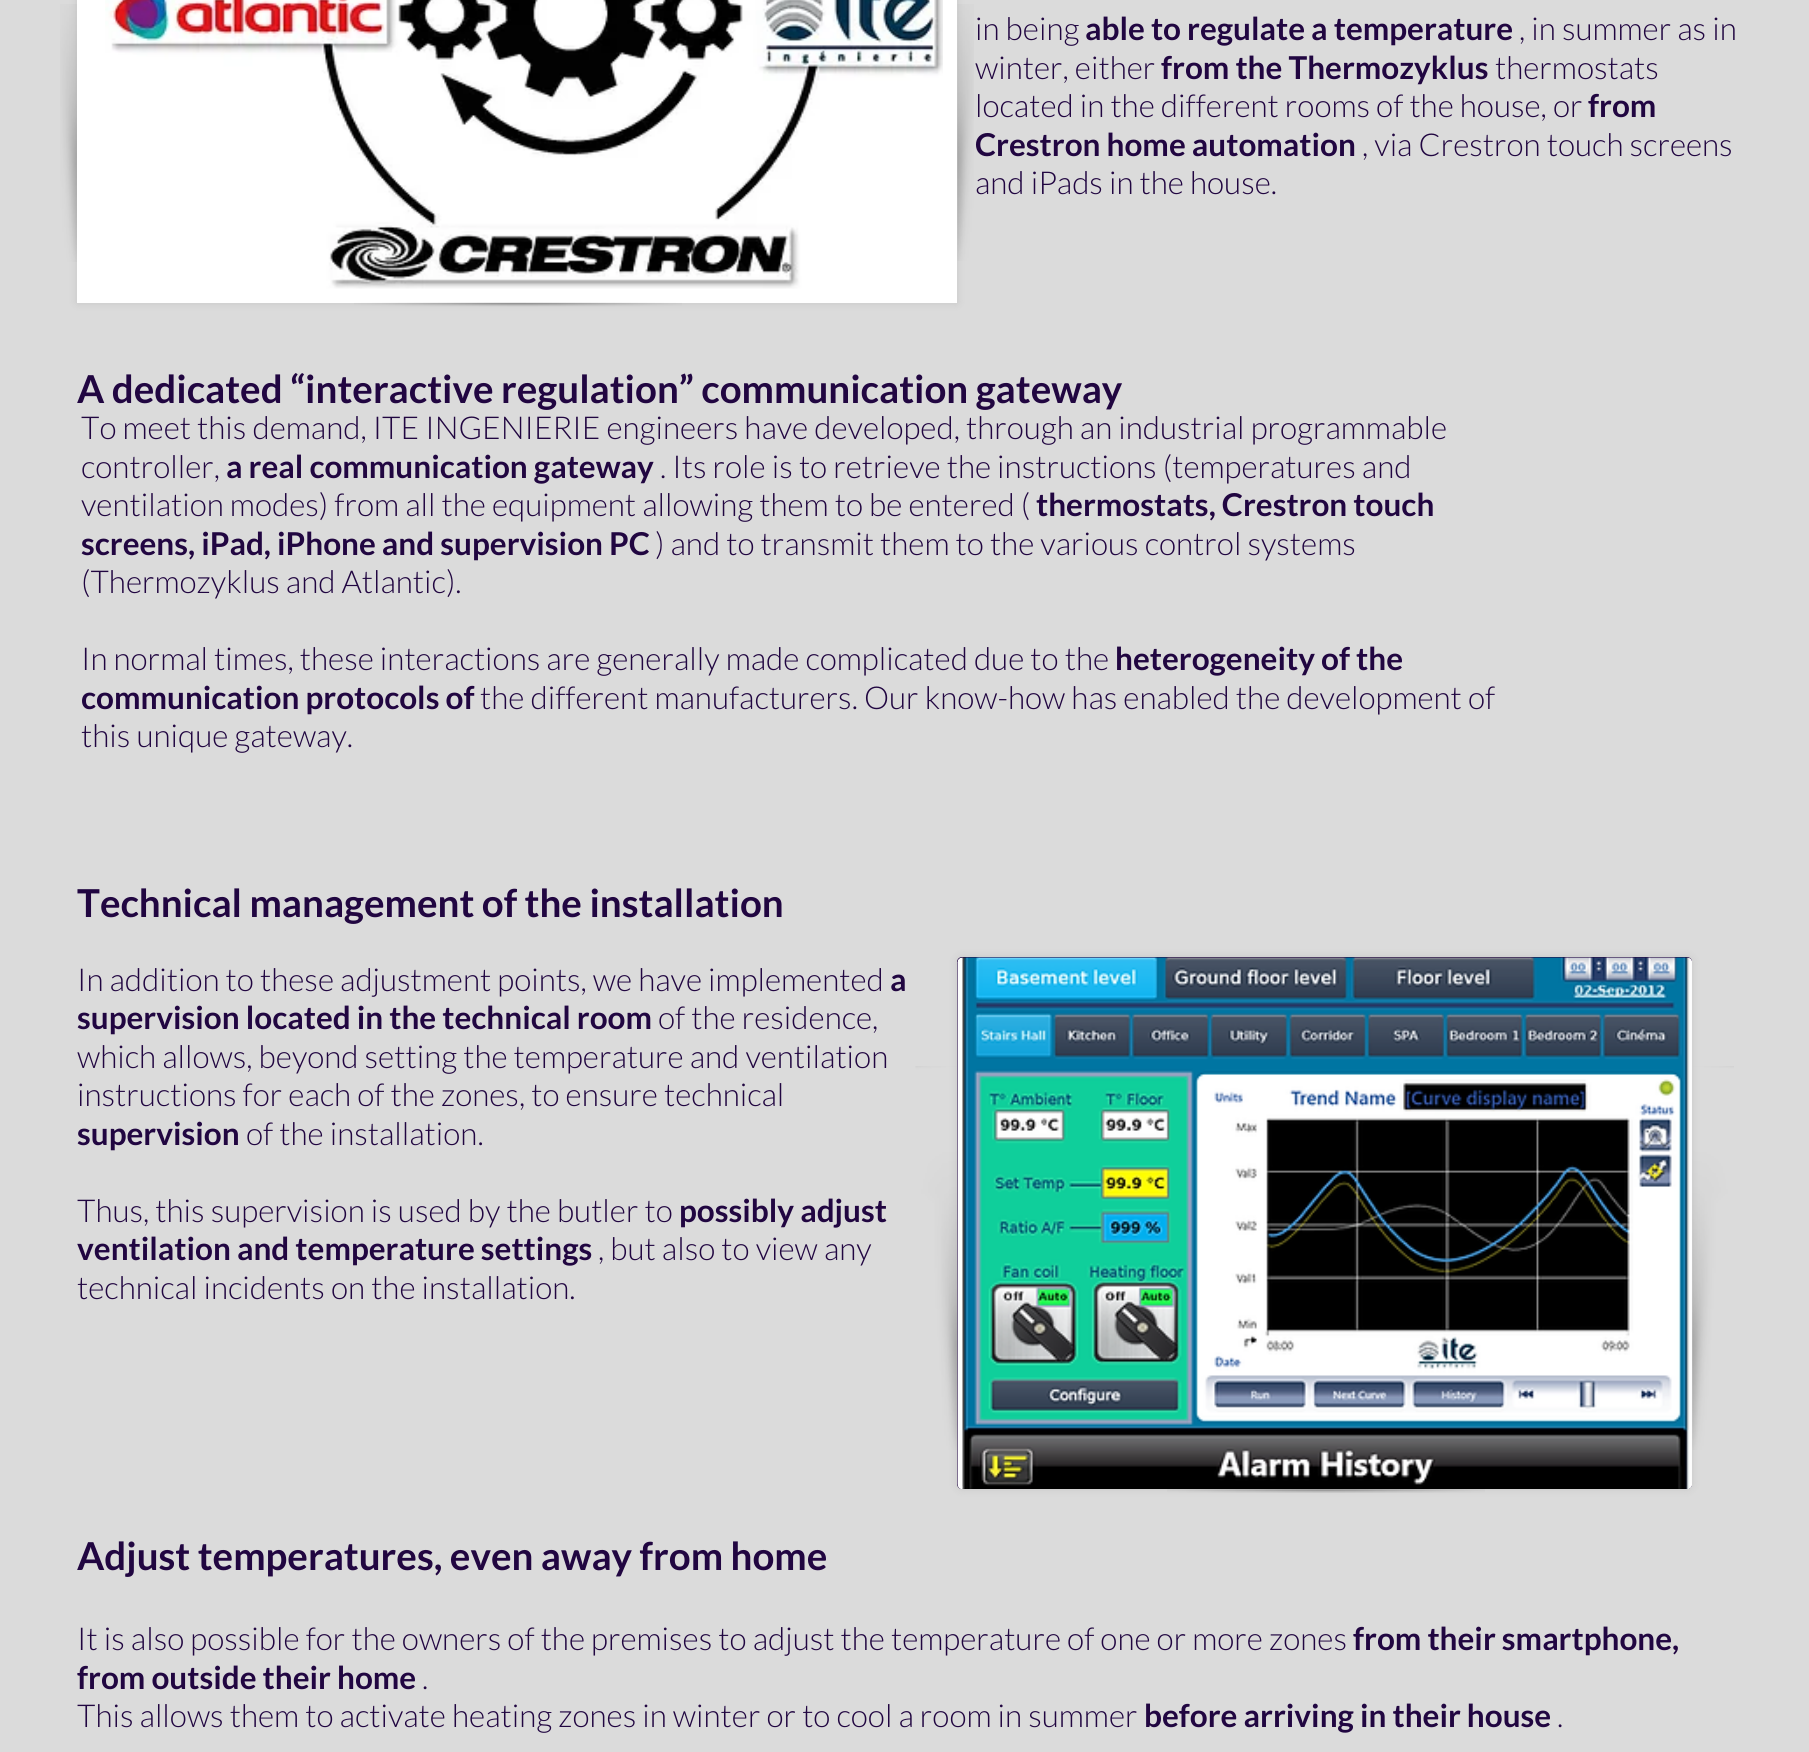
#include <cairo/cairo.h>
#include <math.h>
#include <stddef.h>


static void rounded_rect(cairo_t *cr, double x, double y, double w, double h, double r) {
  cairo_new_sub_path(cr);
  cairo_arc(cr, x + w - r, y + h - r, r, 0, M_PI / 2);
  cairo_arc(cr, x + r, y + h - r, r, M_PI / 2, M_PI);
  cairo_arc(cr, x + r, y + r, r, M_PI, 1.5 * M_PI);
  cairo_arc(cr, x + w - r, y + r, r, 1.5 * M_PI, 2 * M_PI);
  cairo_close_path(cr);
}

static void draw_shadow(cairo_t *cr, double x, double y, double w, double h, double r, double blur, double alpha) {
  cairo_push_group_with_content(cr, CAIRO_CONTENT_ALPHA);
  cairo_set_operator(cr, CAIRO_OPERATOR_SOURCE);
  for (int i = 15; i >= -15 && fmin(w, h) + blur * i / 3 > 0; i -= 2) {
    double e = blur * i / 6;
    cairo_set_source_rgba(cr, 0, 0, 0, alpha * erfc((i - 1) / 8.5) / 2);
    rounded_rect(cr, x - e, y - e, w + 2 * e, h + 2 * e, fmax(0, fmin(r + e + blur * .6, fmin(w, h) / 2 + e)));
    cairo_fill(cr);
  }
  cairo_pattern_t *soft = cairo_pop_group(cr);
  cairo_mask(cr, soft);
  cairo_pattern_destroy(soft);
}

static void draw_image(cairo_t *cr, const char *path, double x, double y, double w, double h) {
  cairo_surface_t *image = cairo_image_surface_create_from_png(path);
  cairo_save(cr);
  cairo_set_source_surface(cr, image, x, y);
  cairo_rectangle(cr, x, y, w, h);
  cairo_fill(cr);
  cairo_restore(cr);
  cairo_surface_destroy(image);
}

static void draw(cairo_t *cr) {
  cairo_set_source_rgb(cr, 219 / 255.0, 219 / 255.0, 219 / 255.0);
  cairo_paint(cr);
  cairo_set_source_rgb(cr, 0, 0, 0);
  draw_shadow(cr, 77, -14, 880, 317, 0, 4.5, 0.1);
  cairo_set_source_rgb(cr, 1, 1, 1);
  cairo_rectangle(cr, 77, 0, 880, 303);
  cairo_fill(cr);
  draw_image(cr, "images/1.png", 105, 0, 838, 289);
  draw_image(cr, "images/2.png", 354, 302, 328, 5);
  draw_image(cr, "images/3.png", 60, 4, 17, 258);
  draw_image(cr, "images/4.png", 957, 4, 17, 257);
  cairo_set_source_rgb(cr, 0, 0, 0);
  draw_shadow(cr, 957, 957, 735, 532, 5, 4.5, 0.1);
  cairo_set_source_rgb(cr, 33 / 255.0, 6 / 255.0, 65 / 255.0);
  rounded_rect(cr, 957, 957, 735, 532, 5);
  cairo_fill(cr);
  draw_image(cr, "images/6.png", 957, 957, 735, 532);
  draw_image(cr, "images/5.png", 915, 1066, 43, 384);
  draw_image(cr, "images/7.png", 1167, 1489, 318, 4);
  draw_image(cr, "images/8.png", 1692, 1066, 42, 384);
  cairo_select_font_face(cr, "Lato Light", CAIRO_FONT_SLANT_NORMAL, CAIRO_FONT_WEIGHT_NORMAL);
  cairo_set_font_size(cr, 31.5);
  cairo_move_to(cr, 975, 40);
  cairo_show_text(cr, "in being");
  cairo_select_font_face(cr, "Lato", CAIRO_FONT_SLANT_NORMAL, CAIRO_FONT_WEIGHT_BOLD);
  cairo_move_to(cr, 1085, 40);
  cairo_show_text(cr, "able to regulate a temperature");
  cairo_select_font_face(cr, "Lato Light", CAIRO_FONT_SLANT_NORMAL, CAIRO_FONT_WEIGHT_NORMAL);
  cairo_move_to(cr, 1519, 40);
  cairo_show_text(cr, ", in summer as in");
  cairo_move_to(cr, 975, 79);
  cairo_show_text(cr, "winter, either");
  cairo_select_font_face(cr, "Lato", CAIRO_FONT_SLANT_NORMAL, CAIRO_FONT_WEIGHT_BOLD);
  cairo_move_to(cr, 1161, 79);
  cairo_show_text(cr, "from the Thermozyklus");
  cairo_select_font_face(cr, "Lato Light", CAIRO_FONT_SLANT_NORMAL, CAIRO_FONT_WEIGHT_NORMAL);
  cairo_move_to(cr, 1495, 79);
  cairo_show_text(cr, "thermostats");
  cairo_move_to(cr, 975, 117);
  cairo_show_text(cr, "located in the different rooms of the house, or");
  cairo_select_font_face(cr, "Lato", CAIRO_FONT_SLANT_NORMAL, CAIRO_FONT_WEIGHT_BOLD);
  cairo_move_to(cr, 1588, 117);
  cairo_show_text(cr, "from");
  cairo_move_to(cr, 975, 156);
  cairo_show_text(cr, "Crestron home automation");
  cairo_select_font_face(cr, "Lato Light", CAIRO_FONT_SLANT_NORMAL, CAIRO_FONT_WEIGHT_NORMAL);
  cairo_move_to(cr, 1362, 156);
  cairo_show_text(cr, ", via Crestron touch screens");
  cairo_move_to(cr, 975, 194);
  cairo_show_text(cr, "and iPads in the house.");
  cairo_select_font_face(cr, "Lato", CAIRO_FONT_SLANT_NORMAL, CAIRO_FONT_WEIGHT_BOLD);
  cairo_set_font_size(cr, 38.5);
  cairo_move_to(cr, 77, 403);
  cairo_show_text(cr, "A dedicated “interactive regulation” communication gateway");
  cairo_select_font_face(cr, "Lato Light", CAIRO_FONT_SLANT_NORMAL, CAIRO_FONT_WEIGHT_NORMAL);
  cairo_set_font_size(cr, 31.5);
  cairo_move_to(cr, 81, 439);
  cairo_show_text(cr, "To meet this demand, ITE INGENIERIE engineers have developed, through an industrial programmable");
  cairo_move_to(cr, 81, 478);
  cairo_show_text(cr, "controller,");
  cairo_select_font_face(cr, "Lato", CAIRO_FONT_SLANT_NORMAL, CAIRO_FONT_WEIGHT_BOLD);
  cairo_move_to(cr, 226, 478);
  cairo_show_text(cr, "a real communication gateway");
  cairo_select_font_face(cr, "Lato Light", CAIRO_FONT_SLANT_NORMAL, CAIRO_FONT_WEIGHT_NORMAL);
  cairo_move_to(cr, 660, 478);
  cairo_show_text(cr, ". Its role is to retrieve the instructions (temperatures and");
  cairo_move_to(cr, 81, 516);
  cairo_show_text(cr, "ventilation modes) from all the equipment allowing them to be entered (");
  cairo_select_font_face(cr, "Lato", CAIRO_FONT_SLANT_NORMAL, CAIRO_FONT_WEIGHT_BOLD);
  cairo_move_to(cr, 1036, 516);
  cairo_show_text(cr, "thermostats, Crestron touch");
  cairo_move_to(cr, 81, 555);
  cairo_show_text(cr, "screens, iPad, iPhone and supervision PC");
  cairo_select_font_face(cr, "Lato Light", CAIRO_FONT_SLANT_NORMAL, CAIRO_FONT_WEIGHT_NORMAL);
  cairo_move_to(cr, 655, 555);
  cairo_show_text(cr, ") and to transmit them to the various control systems");
  cairo_move_to(cr, 81, 593);
  cairo_show_text(cr, "(Thermozyklus and Atlantic).");
  cairo_move_to(cr, 81, 670);
  cairo_show_text(cr, "In normal times, these interactions are generally made complicated due to the");
  cairo_select_font_face(cr, "Lato", CAIRO_FONT_SLANT_NORMAL, CAIRO_FONT_WEIGHT_BOLD);
  cairo_move_to(cr, 1115, 670);
  cairo_show_text(cr, "heterogeneity of the");
  cairo_move_to(cr, 81, 709);
  cairo_show_text(cr, "communication protocols of");
  cairo_select_font_face(cr, "Lato Light", CAIRO_FONT_SLANT_NORMAL, CAIRO_FONT_WEIGHT_NORMAL);
  cairo_move_to(cr, 480, 709);
  cairo_show_text(cr, "the different manufacturers. Our know-how has enabled the development of");
  cairo_move_to(cr, 81, 747);
  cairo_show_text(cr, "this unique gateway.");
  cairo_select_font_face(cr, "Lato", CAIRO_FONT_SLANT_NORMAL, CAIRO_FONT_WEIGHT_BOLD);
  cairo_set_font_size(cr, 38.5);
  cairo_move_to(cr, 77, 917);
  cairo_show_text(cr, "Technical management of the installation");
  cairo_select_font_face(cr, "Lato Light", CAIRO_FONT_SLANT_NORMAL, CAIRO_FONT_WEIGHT_NORMAL);
  cairo_set_font_size(cr, 31.5);
  cairo_move_to(cr, 77, 991);
  cairo_show_text(cr, "In addition to these adjustment points, we have implemented");
  cairo_select_font_face(cr, "Lato", CAIRO_FONT_SLANT_NORMAL, CAIRO_FONT_WEIGHT_BOLD);
  cairo_move_to(cr, 890, 991);
  cairo_show_text(cr, "a");
  cairo_move_to(cr, 77, 1029);
  cairo_show_text(cr, "supervision located in the technical room");
  cairo_select_font_face(cr, "Lato Light", CAIRO_FONT_SLANT_NORMAL, CAIRO_FONT_WEIGHT_NORMAL);
  cairo_move_to(cr, 658, 1029);
  cairo_show_text(cr, "of the residence,");
  cairo_move_to(cr, 77, 1068);
  cairo_show_text(cr, "which allows, beyond setting the temperature and ventilation");
  cairo_move_to(cr, 77, 1106);
  cairo_show_text(cr, "instructions for each of the zones, to ensure technical");
  cairo_select_font_face(cr, "Lato", CAIRO_FONT_SLANT_NORMAL, CAIRO_FONT_WEIGHT_BOLD);
  cairo_move_to(cr, 77, 1145);
  cairo_show_text(cr, "supervision");
  cairo_select_font_face(cr, "Lato Light", CAIRO_FONT_SLANT_NORMAL, CAIRO_FONT_WEIGHT_NORMAL);
  cairo_move_to(cr, 246, 1145);
  cairo_show_text(cr, "of the installation.");
  cairo_move_to(cr, 77, 1222);
  cairo_show_text(cr, "Thus, this supervision is used by the butler to");
  cairo_select_font_face(cr, "Lato", CAIRO_FONT_SLANT_NORMAL, CAIRO_FONT_WEIGHT_BOLD);
  cairo_move_to(cr, 679, 1222);
  cairo_show_text(cr, "possibly adjust");
  cairo_move_to(cr, 77, 1260);
  cairo_show_text(cr, "ventilation and temperature settings");
  cairo_select_font_face(cr, "Lato Light", CAIRO_FONT_SLANT_NORMAL, CAIRO_FONT_WEIGHT_NORMAL);
  cairo_move_to(cr, 598, 1260);
  cairo_show_text(cr, ", but also to view any");
  cairo_move_to(cr, 77, 1299);
  cairo_show_text(cr, "technical incidents on the installation.");
  cairo_select_font_face(cr, "Lato", CAIRO_FONT_SLANT_NORMAL, CAIRO_FONT_WEIGHT_BOLD);
  cairo_set_font_size(cr, 38.5);
  cairo_move_to(cr, 77, 1570);
  cairo_show_text(cr, "Adjust temperatures, even away from home");
  cairo_select_font_face(cr, "Lato Light", CAIRO_FONT_SLANT_NORMAL, CAIRO_FONT_WEIGHT_NORMAL);
  cairo_set_font_size(cr, 31.5);
  cairo_move_to(cr, 77, 1650);
  cairo_show_text(cr, "It is also possible for the owners of the premises to adjust the temperature of one or more zones");
  cairo_select_font_face(cr, "Lato", CAIRO_FONT_SLANT_NORMAL, CAIRO_FONT_WEIGHT_BOLD);
  cairo_move_to(cr, 1353, 1650);
  cairo_show_text(cr, "from their smartphone,");
  cairo_move_to(cr, 77, 1689);
  cairo_show_text(cr, "from outside their home");
  cairo_select_font_face(cr, "Lato Light", CAIRO_FONT_SLANT_NORMAL, CAIRO_FONT_WEIGHT_NORMAL);
  cairo_move_to(cr, 422, 1689);
  cairo_show_text(cr, ".");
  cairo_move_to(cr, 77, 1727);
  cairo_show_text(cr, "This allows them to activate heating zones in winter or to cool a room in summer");
  cairo_select_font_face(cr, "Lato", CAIRO_FONT_SLANT_NORMAL, CAIRO_FONT_WEIGHT_BOLD);
  cairo_move_to(cr, 1144, 1727);
  cairo_show_text(cr, "before arriving in their house");
  cairo_select_font_face(cr, "Lato Light", CAIRO_FONT_SLANT_NORMAL, CAIRO_FONT_WEIGHT_NORMAL);
  cairo_move_to(cr, 1557, 1727);
  cairo_show_text(cr, ".");
}

int main(void) {
  cairo_surface_t *surface = cairo_image_surface_create(CAIRO_FORMAT_RGB24, 1809, 1752);
  cairo_t *cr = cairo_create(surface);
  cairo_font_options_t *options = cairo_font_options_create();
  cairo_font_options_set_hint_metrics(options, CAIRO_HINT_METRICS_OFF);
  cairo_font_options_set_hint_style(options, CAIRO_HINT_STYLE_NONE);
  cairo_set_font_options(cr, options);
  cairo_set_miter_limit(cr, 4);
  draw(cr);
  cairo_surface_write_to_png(surface, "out.png");
  cairo_font_options_destroy(options);
  cairo_destroy(cr);
  cairo_surface_destroy(surface);
  return 0;
}
